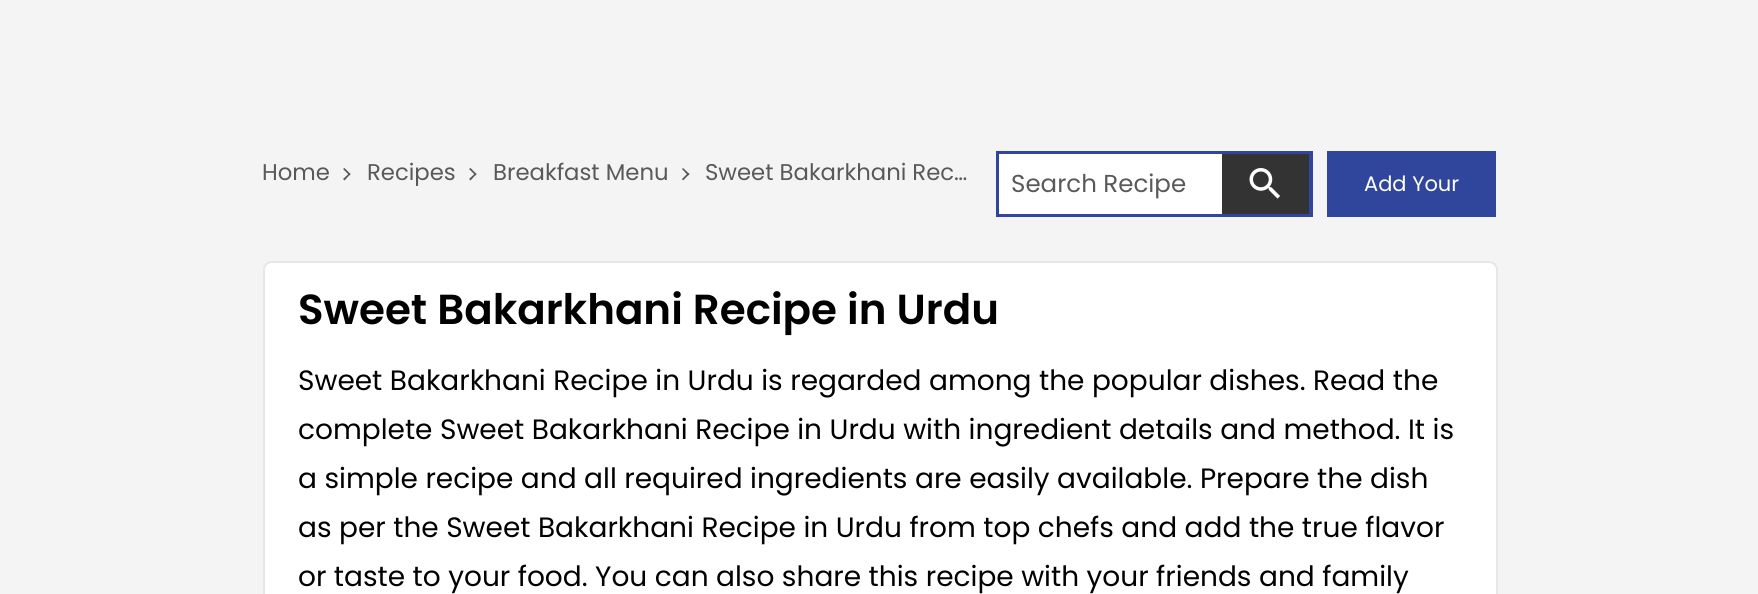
#include <cairo/cairo.h>
#include <math.h>
#include <stddef.h>


static void rounded_rect(cairo_t *cr, double x, double y, double w, double h, double r) {
  cairo_new_sub_path(cr);
  cairo_arc(cr, x + w - r, y + h - r, r, 0, M_PI / 2);
  cairo_arc(cr, x + r, y + h - r, r, M_PI / 2, M_PI);
  cairo_arc(cr, x + r, y + r, r, M_PI, 1.5 * M_PI);
  cairo_arc(cr, x + w - r, y + r, r, 1.5 * M_PI, 2 * M_PI);
  cairo_close_path(cr);
}

static void draw_image(cairo_t *cr, const char *path, double x, double y, double w, double h) {
  cairo_surface_t *image = cairo_image_surface_create_from_png(path);
  cairo_save(cr);
  cairo_set_source_surface(cr, image, x, y);
  cairo_rectangle(cr, x, y, w, h);
  cairo_fill(cr);
  cairo_restore(cr);
  cairo_surface_destroy(image);
}

static void draw(cairo_t *cr) {
  cairo_set_source_rgb(cr, 244 / 255.0, 244 / 255.0, 244 / 255.0);
  cairo_paint(cr);
  cairo_set_source_rgb(cr, 89 / 255.0, 89 / 255.0, 89 / 255.0);
  cairo_new_path(cr);
  cairo_move_to(cr, 343, 169);
  cairo_line_to(cr, 344.5, 168);
  cairo_line_to(cr, 350.5, 174);
  cairo_line_to(cr, 349.5, 175.5);
  cairo_close_path(cr);
  cairo_fill(cr);
  cairo_new_path(cr);
  cairo_move_to(cr, 343, 179);
  cairo_line_to(cr, 349.5, 173);
  cairo_line_to(cr, 350.5, 174);
  cairo_line_to(cr, 344.5, 180.5);
  cairo_close_path(cr);
  cairo_fill(cr);
  cairo_new_path(cr);
  cairo_move_to(cr, 469, 169);
  cairo_line_to(cr, 470.5, 168);
  cairo_line_to(cr, 476.5, 174);
  cairo_line_to(cr, 475.5, 175.5);
  cairo_close_path(cr);
  cairo_fill(cr);
  cairo_new_path(cr);
  cairo_move_to(cr, 469, 179);
  cairo_line_to(cr, 475.5, 173);
  cairo_line_to(cr, 476.5, 174);
  cairo_line_to(cr, 470.5, 180.5);
  cairo_close_path(cr);
  cairo_fill(cr);
  cairo_new_path(cr);
  cairo_move_to(cr, 682, 169);
  cairo_line_to(cr, 683, 168);
  cairo_line_to(cr, 689.5, 174);
  cairo_line_to(cr, 688, 175.5);
  cairo_close_path(cr);
  cairo_fill(cr);
  cairo_new_path(cr);
  cairo_move_to(cr, 682, 179);
  cairo_line_to(cr, 688, 173);
  cairo_line_to(cr, 689.5, 174);
  cairo_line_to(cr, 683, 180.5);
  cairo_close_path(cr);
  cairo_fill(cr);
  cairo_set_source_rgb(cr, 48 / 255.0, 70 / 255.0, 156 / 255.0);
  cairo_rectangle(cr, 996, 151, 317, 66);
  cairo_fill(cr);
  cairo_set_source_rgb(cr, 1, 1, 1);
  cairo_rectangle(cr, 999, 154, 223, 60);
  cairo_fill(cr);
  cairo_set_source_rgb(cr, 51 / 255.0, 51 / 255.0, 51 / 255.0);
  cairo_rectangle(cr, 1222, 154, 87, 60);
  cairo_fill(cr);
  draw_image(cr, "images/1.png", 1249, 168, 31, 31);
  cairo_set_source_rgb(cr, 48 / 255.0, 70 / 255.0, 156 / 255.0);
  cairo_rectangle(cr, 1327, 151, 169, 66);
  cairo_fill(cr);
  cairo_set_source_rgb(cr, 1, 1, 1);
  rounded_rect(cr, 264, 262, 1233, 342, 8);
  cairo_fill_preserve(cr);
  cairo_set_source_rgb(cr, 231 / 255.0, 231 / 255.0, 231 / 255.0);
  cairo_stroke(cr);
  cairo_select_font_face(cr, "Poppins", CAIRO_FONT_SLANT_NORMAL, CAIRO_FONT_WEIGHT_NORMAL);
  cairo_set_font_size(cr, 22.75);
  cairo_set_source_rgb(cr, 89 / 255.0, 89 / 255.0, 89 / 255.0);
  cairo_move_to(cr, 262, 180);
  cairo_show_text(cr, "Home");
  cairo_move_to(cr, 367, 180);
  cairo_show_text(cr, "Recipes");
  cairo_move_to(cr, 493, 180);
  cairo_show_text(cr, "Breakfast Menu");
  cairo_move_to(cr, 705, 180);
  cairo_show_text(cr, "Sweet Bakarkhani Rec…");
  cairo_set_font_size(cr, 24.5);
  cairo_move_to(cr, 1011, 192);
  cairo_show_text(cr, "Search Recipe");
  cairo_set_font_size(cr, 21);
  cairo_set_source_rgb(cr, 1, 1, 1);
  cairo_move_to(cr, 1364, 191);
  cairo_show_text(cr, "Add Your");
  cairo_select_font_face(cr, "Poppins SemiBold", CAIRO_FONT_SLANT_NORMAL, CAIRO_FONT_WEIGHT_NORMAL);
  cairo_set_font_size(cr, 42);
  cairo_set_source_rgb(cr, 0, 0, 0);
  cairo_move_to(cr, 298, 324);
  cairo_show_text(cr, "Sweet Bakarkhani Recipe in Urdu");
  cairo_select_font_face(cr, "Poppins", CAIRO_FONT_SLANT_NORMAL, CAIRO_FONT_WEIGHT_NORMAL);
  cairo_set_font_size(cr, 28);
  cairo_move_to(cr, 298, 390);
  cairo_show_text(cr, "Sweet Bakarkhani Recipe in Urdu is regarded among the popular dishes. Read the");
  cairo_move_to(cr, 298, 439);
  cairo_show_text(cr, "complete Sweet Bakarkhani Recipe in Urdu with ingredient details and method. It is");
  cairo_move_to(cr, 298, 488);
  cairo_show_text(cr, "a simple recipe and all required ingredients are easily available. Prepare the dish");
  cairo_move_to(cr, 298, 537);
  cairo_show_text(cr, "as per the Sweet Bakarkhani Recipe in Urdu from top chefs and add the true flavor");
  cairo_move_to(cr, 298, 586);
  cairo_show_text(cr, "or taste to your food. You can also share this recipe with your friends and family");
}

int main(void) {
  cairo_surface_t *surface = cairo_image_surface_create(CAIRO_FORMAT_RGB24, 1758, 594);
  cairo_t *cr = cairo_create(surface);
  cairo_font_options_t *options = cairo_font_options_create();
  cairo_font_options_set_hint_metrics(options, CAIRO_HINT_METRICS_OFF);
  cairo_font_options_set_hint_style(options, CAIRO_HINT_STYLE_NONE);
  cairo_set_font_options(cr, options);
  cairo_set_miter_limit(cr, 4);
  draw(cr);
  cairo_surface_write_to_png(surface, "out.png");
  cairo_font_options_destroy(options);
  cairo_destroy(cr);
  cairo_surface_destroy(surface);
  return 0;
}
